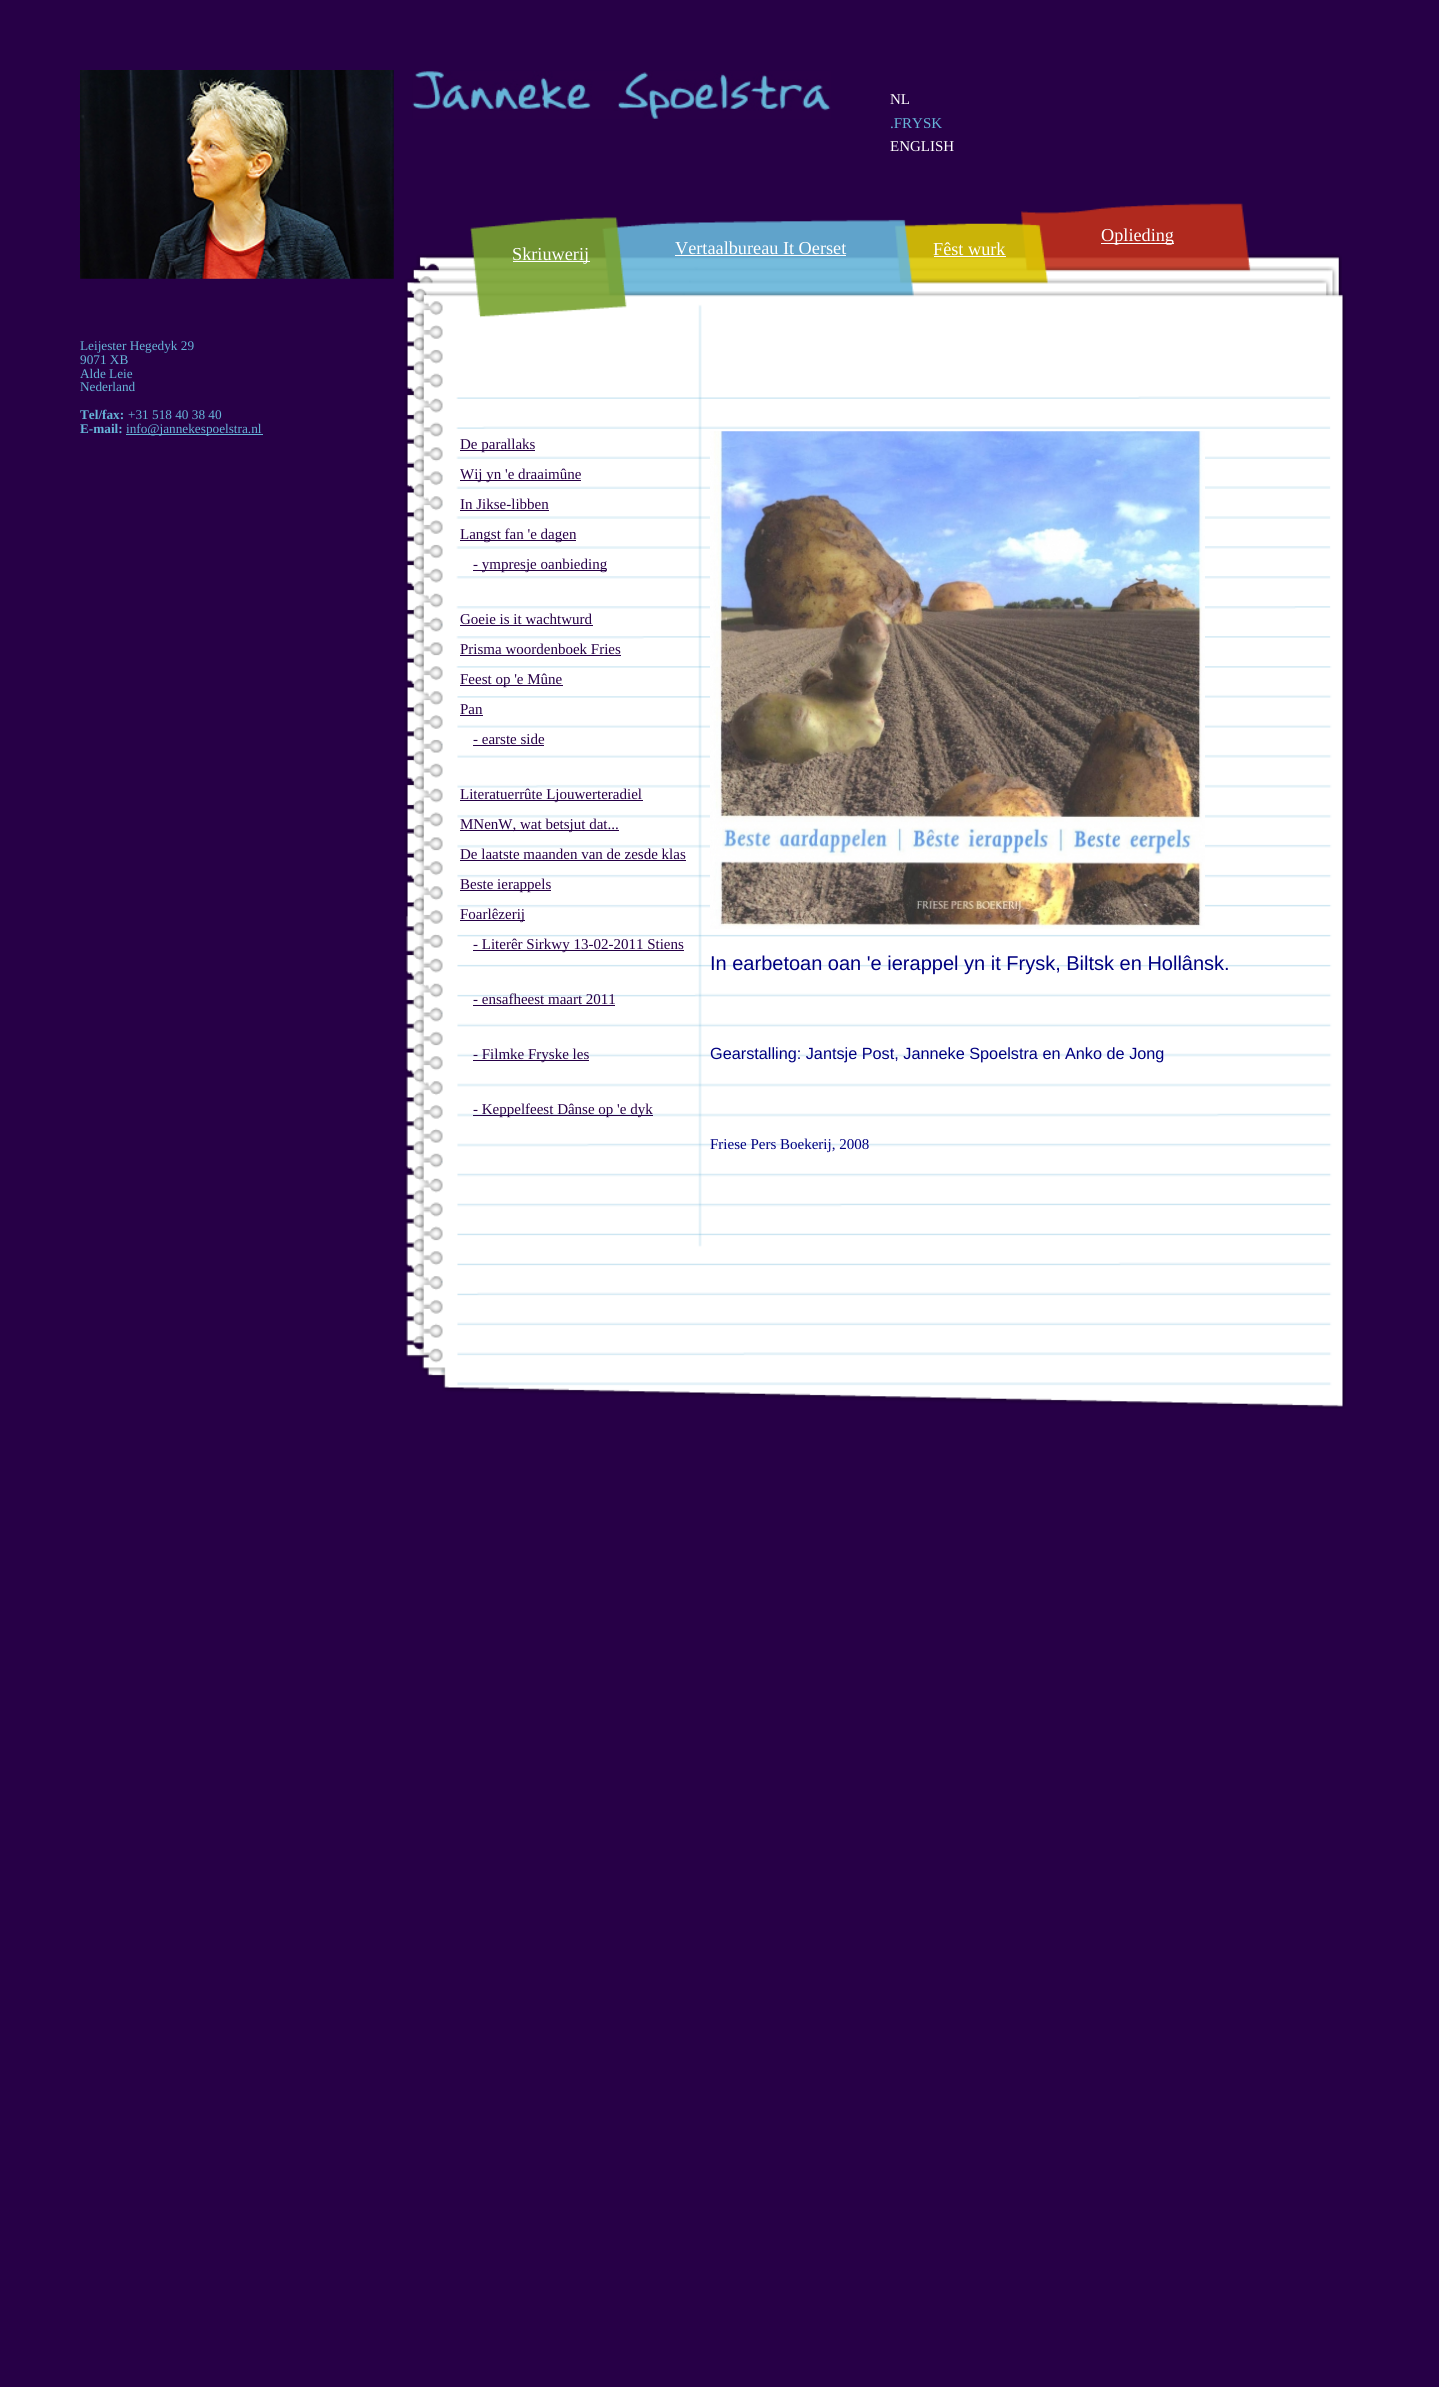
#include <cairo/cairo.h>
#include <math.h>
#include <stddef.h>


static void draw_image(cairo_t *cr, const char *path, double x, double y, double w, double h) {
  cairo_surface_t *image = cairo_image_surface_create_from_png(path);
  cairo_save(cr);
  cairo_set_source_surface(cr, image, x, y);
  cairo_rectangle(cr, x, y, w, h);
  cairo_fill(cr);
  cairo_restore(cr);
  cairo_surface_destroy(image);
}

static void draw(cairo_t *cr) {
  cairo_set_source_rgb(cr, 39 / 255.0, 0, 71 / 255.0);
  cairo_paint(cr);
  draw_image(cr, "images/1.png", 80, 70, 314, 209);
  cairo_set_source_rgb(cr, 102 / 255.0, 181 / 255.0, 217 / 255.0);
  cairo_rectangle(cr, 126, 434, 137, 1);
  cairo_fill(cr);
  draw_image(cr, "images/2.png", 412, 71, 419, 48);
  draw_image(cr, "images/7.png", 416, 254, 926, 1072);
  draw_image(cr, "images/3.png", 1021, 203, 230, 69);
  cairo_set_source_rgb(cr, 1, 1, 1);
  cairo_rectangle(cr, 1101, 243, 73, 1);
  cairo_fill(cr);
  draw_image(cr, "images/8.png", 410, 266, 927, 1081);
  draw_image(cr, "images/6.png", 894, 223, 155, 61);
  draw_image(cr, "images/9.png", 404, 278, 927, 1102);
  draw_image(cr, "images/5.png", 602, 219, 312, 78);
  draw_image(cr, "images/10.png", 419, 291, 927, 1118);
  draw_image(cr, "images/4.png", 470, 217, 157, 101);
  cairo_rectangle(cr, 513, 261, 77, 1);
  cairo_fill(cr);
  cairo_rectangle(cr, 675, 255, 171, 1);
  cairo_fill(cr);
  cairo_rectangle(cr, 934, 256, 72, 1);
  cairo_fill(cr);
  cairo_set_source_rgb(cr, 39 / 255.0, 0, 71 / 255.0);
  cairo_rectangle(cr, 460, 450, 75, 1);
  cairo_fill(cr);
  cairo_rectangle(cr, 460, 480, 121, 1);
  cairo_fill(cr);
  cairo_rectangle(cr, 460, 510, 89, 1);
  cairo_fill(cr);
  cairo_rectangle(cr, 460, 540, 116, 1);
  cairo_fill(cr);
  cairo_rectangle(cr, 473, 570, 133, 1);
  cairo_fill(cr);
  cairo_rectangle(cr, 460, 625, 133, 1);
  cairo_fill(cr);
  cairo_rectangle(cr, 460, 655, 161, 1);
  cairo_fill(cr);
  cairo_rectangle(cr, 460, 685, 103, 1);
  cairo_fill(cr);
  cairo_rectangle(cr, 460, 715, 23, 1);
  cairo_fill(cr);
  cairo_rectangle(cr, 473, 745, 71, 1);
  cairo_fill(cr);
  cairo_rectangle(cr, 460, 800, 183, 1);
  cairo_fill(cr);
  cairo_rectangle(cr, 460, 830, 159, 1);
  cairo_fill(cr);
  cairo_rectangle(cr, 460, 860, 226, 1);
  cairo_fill(cr);
  cairo_rectangle(cr, 460, 890, 91, 1);
  cairo_fill(cr);
  cairo_rectangle(cr, 460, 920, 65, 1);
  cairo_fill(cr);
  cairo_rectangle(cr, 473, 950, 211, 1);
  cairo_fill(cr);
  cairo_rectangle(cr, 473, 1005, 142, 1);
  cairo_fill(cr);
  cairo_rectangle(cr, 473, 1060, 116, 1);
  cairo_fill(cr);
  cairo_rectangle(cr, 473, 1115, 180, 1);
  cairo_fill(cr);
  draw_image(cr, "images/11.png", 710, 431, 495, 498);
  cairo_select_font_face(cr, "Liberation Serif", CAIRO_FONT_SLANT_NORMAL, CAIRO_FONT_WEIGHT_NORMAL);
  cairo_set_font_size(cr, 13.25);
  cairo_set_source_rgb(cr, 102 / 255.0, 181 / 255.0, 217 / 255.0);
  cairo_move_to(cr, 80, 350);
  cairo_show_text(cr, "Leijester Hegedyk 29");
  cairo_move_to(cr, 80, 364);
  cairo_show_text(cr, "9071 XB");
  cairo_move_to(cr, 80, 378);
  cairo_show_text(cr, "Alde Leie");
  cairo_move_to(cr, 80, 391);
  cairo_show_text(cr, "Nederland");
  cairo_select_font_face(cr, "Liberation Serif", CAIRO_FONT_SLANT_NORMAL, CAIRO_FONT_WEIGHT_BOLD);
  cairo_move_to(cr, 80, 419);
  cairo_show_text(cr, "Tel/fax:");
  cairo_select_font_face(cr, "Liberation Serif", CAIRO_FONT_SLANT_NORMAL, CAIRO_FONT_WEIGHT_NORMAL);
  cairo_move_to(cr, 128, 419);
  cairo_show_text(cr, "+31 518 40 38 40");
  cairo_select_font_face(cr, "Liberation Serif", CAIRO_FONT_SLANT_NORMAL, CAIRO_FONT_WEIGHT_BOLD);
  cairo_move_to(cr, 80, 433);
  cairo_show_text(cr, "E-mail:");
  cairo_select_font_face(cr, "Liberation Serif", CAIRO_FONT_SLANT_NORMAL, CAIRO_FONT_WEIGHT_NORMAL);
  cairo_move_to(cr, 126, 433);
  cairo_show_text(cr, "info@jannekespoelstra.nl");
  cairo_set_font_size(cr, 15);
  cairo_set_source_rgb(cr, 1, 1, 1);
  cairo_move_to(cr, 890, 104);
  cairo_show_text(cr, "NL");
  cairo_set_source_rgb(cr, 102 / 255.0, 181 / 255.0, 217 / 255.0);
  cairo_move_to(cr, 890, 128);
  cairo_show_text(cr, ".FRYSK");
  cairo_set_source_rgb(cr, 1, 1, 1);
  cairo_move_to(cr, 890, 151);
  cairo_show_text(cr, "ENGLISH");
  cairo_set_font_size(cr, 18.25);
  cairo_move_to(cr, 1101, 241);
  cairo_show_text(cr, "Oplieding");
  cairo_move_to(cr, 512, 260);
  cairo_show_text(cr, "Skriuwerij");
  cairo_move_to(cr, 675, 254);
  cairo_show_text(cr, "Vertaalbureau It Oerset");
  cairo_move_to(cr, 933, 255);
  cairo_show_text(cr, "Fêst wurk");
  cairo_set_font_size(cr, 15);
  cairo_set_source_rgb(cr, 39 / 255.0, 0, 71 / 255.0);
  cairo_move_to(cr, 460, 449);
  cairo_show_text(cr, "De parallaks");
  cairo_move_to(cr, 460, 479);
  cairo_show_text(cr, "Wij yn 'e draaimûne");
  cairo_move_to(cr, 460, 509);
  cairo_show_text(cr, "In Jikse-libben");
  cairo_move_to(cr, 460, 539);
  cairo_show_text(cr, "Langst fan 'e dagen");
  cairo_move_to(cr, 473, 569);
  cairo_show_text(cr, "- ympresje oanbieding");
  cairo_move_to(cr, 460, 624);
  cairo_show_text(cr, "Goeie is it wachtwurd");
  cairo_move_to(cr, 460, 654);
  cairo_show_text(cr, "Prisma woordenboek Fries");
  cairo_move_to(cr, 460, 684);
  cairo_show_text(cr, "Feest op 'e Mûne");
  cairo_move_to(cr, 460, 714);
  cairo_show_text(cr, "Pan");
  cairo_move_to(cr, 473, 744);
  cairo_show_text(cr, "- earste side");
  cairo_move_to(cr, 460, 799);
  cairo_show_text(cr, "Literatuerrûte Ljouwerteradiel");
  cairo_move_to(cr, 460, 829);
  cairo_show_text(cr, "MNenW, wat betsjut dat...");
  cairo_move_to(cr, 460, 859);
  cairo_show_text(cr, "De laatste maanden van de zesde klas");
  cairo_move_to(cr, 460, 889);
  cairo_show_text(cr, "Beste ierappels");
  cairo_move_to(cr, 460, 919);
  cairo_show_text(cr, "Foarlêzerij");
  cairo_move_to(cr, 473, 949);
  cairo_show_text(cr, "- Literêr Sirkwy 13-02-2011 Stiens");
  cairo_move_to(cr, 473, 1004);
  cairo_show_text(cr, "- ensafheest maart 2011");
  cairo_move_to(cr, 473, 1059);
  cairo_show_text(cr, "- Filmke Fryske les");
  cairo_move_to(cr, 473, 1114);
  cairo_show_text(cr, "- Keppelfeest Dânse op 'e dyk");
  cairo_select_font_face(cr, "Liberation Sans", CAIRO_FONT_SLANT_NORMAL, CAIRO_FONT_WEIGHT_NORMAL);
  cairo_set_font_size(cr, 20);
  cairo_set_source_rgb(cr, 0, 0, 128 / 255.0);
  cairo_move_to(cr, 710, 970);
  cairo_show_text(cr, "In earbetoan oan 'e ierappel yn it Frysk, Biltsk en Hollânsk.");
  cairo_set_font_size(cr, 16.25);
  cairo_move_to(cr, 710, 1059);
  cairo_show_text(cr, "Gearstalling: Jantsje Post, Janneke Spoelstra en Anko de Jong");
  cairo_select_font_face(cr, "Liberation Serif", CAIRO_FONT_SLANT_NORMAL, CAIRO_FONT_WEIGHT_NORMAL);
  cairo_set_font_size(cr, 15);
  cairo_move_to(cr, 710, 1149);
  cairo_show_text(cr, "Friese Pers Boekerij, 2008");
}

int main(void) {
  cairo_surface_t *surface = cairo_image_surface_create(CAIRO_FORMAT_RGB24, 1439, 2387);
  cairo_t *cr = cairo_create(surface);
  cairo_font_options_t *options = cairo_font_options_create();
  cairo_font_options_set_hint_metrics(options, CAIRO_HINT_METRICS_OFF);
  cairo_font_options_set_hint_style(options, CAIRO_HINT_STYLE_NONE);
  cairo_set_font_options(cr, options);
  cairo_set_miter_limit(cr, 4);
  draw(cr);
  cairo_surface_write_to_png(surface, "out.png");
  cairo_font_options_destroy(options);
  cairo_destroy(cr);
  cairo_surface_destroy(surface);
  return 0;
}
